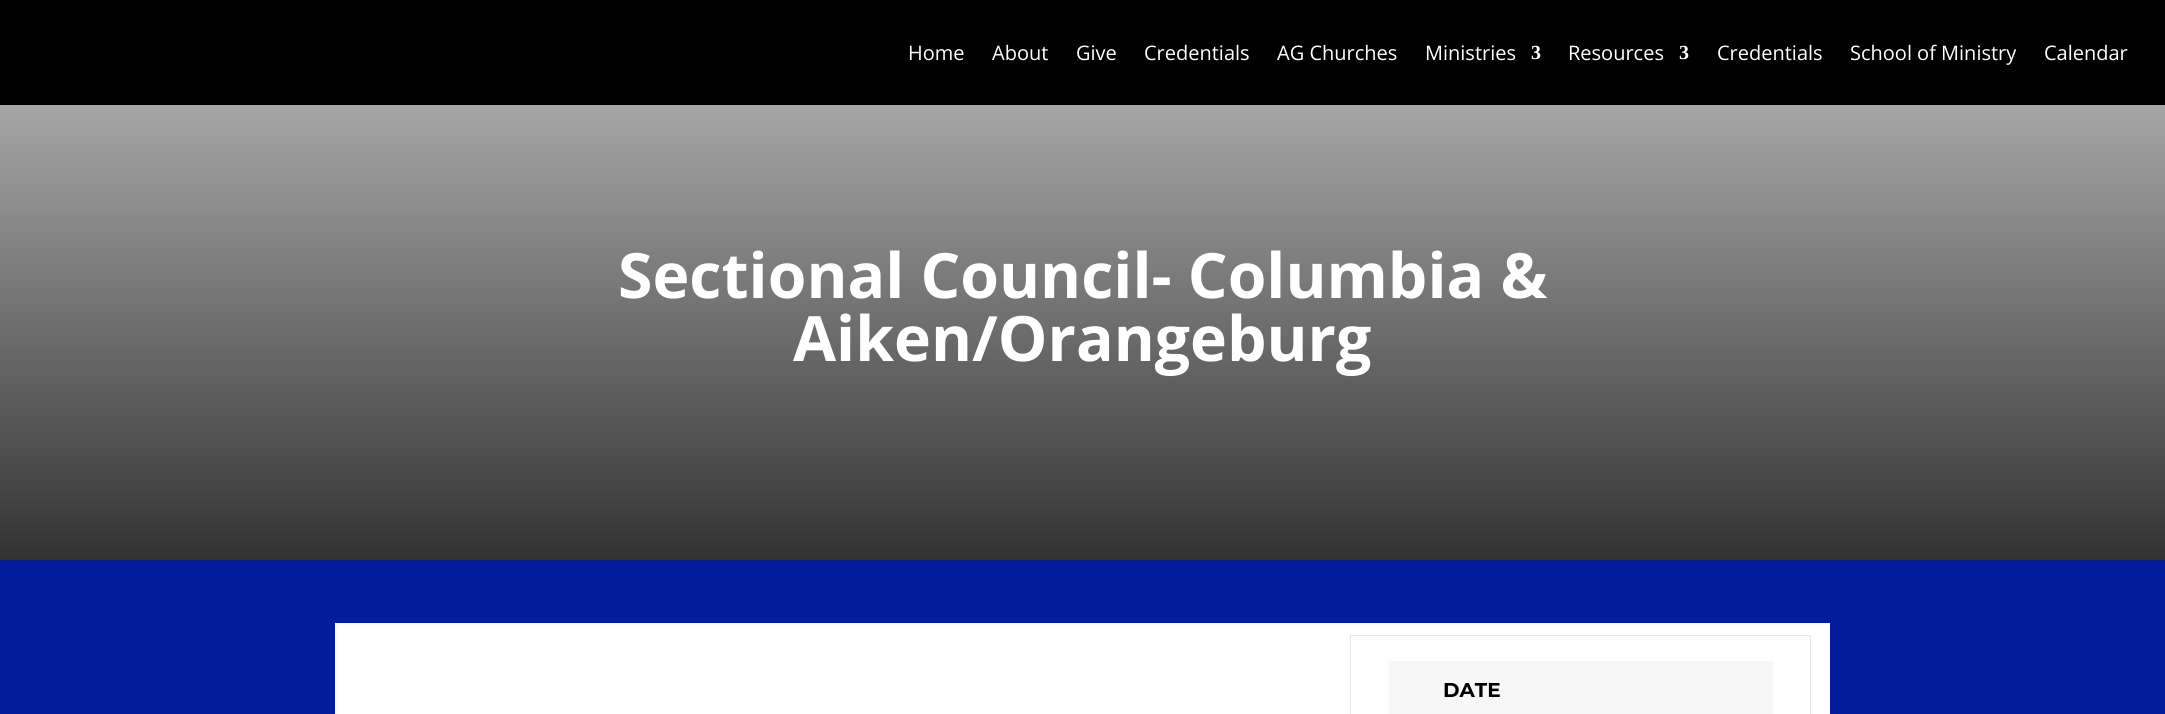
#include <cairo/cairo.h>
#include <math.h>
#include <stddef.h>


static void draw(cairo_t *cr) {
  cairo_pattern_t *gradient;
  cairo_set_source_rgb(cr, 4 / 255.0, 27 / 255.0, 158 / 255.0);
  cairo_paint(cr);
  cairo_set_source_rgb(cr, 0, 0, 0);
  cairo_rectangle(cr, 0, 0, 2165, 105);
  cairo_fill(cr);
  gradient = cairo_pattern_create_linear(1083, 0, 1083, 560);
  cairo_pattern_add_color_stop_rgba(gradient, 0, 192 / 255.0, 192 / 255.0, 192 / 255.0, 1);
  cairo_pattern_add_color_stop_rgba(gradient, 1, 51 / 255.0, 51 / 255.0, 51 / 255.0, 1);
  cairo_set_source(cr, gradient);
  cairo_pattern_destroy(gradient);
  cairo_rectangle(cr, 0, 105, 2165, 455);
  cairo_fill(cr);
  cairo_set_source_rgb(cr, 1, 1, 1);
  cairo_rectangle(cr, 335, 623, 1495, 91);
  cairo_fill(cr);
  cairo_rectangle(cr, 1350.5, 635.5, 460, 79);
  cairo_set_source_rgb(cr, 230 / 255.0, 230 / 255.0, 230 / 255.0);
  cairo_set_line_width(cr, 1);
  cairo_stroke(cr);
  cairo_set_source_rgb(cr, 247 / 255.0, 247 / 255.0, 247 / 255.0);
  cairo_rectangle(cr, 1389, 661, 384, 53);
  cairo_fill(cr);
  cairo_select_font_face(cr, "Open Sans", CAIRO_FONT_SLANT_NORMAL, CAIRO_FONT_WEIGHT_NORMAL);
  cairo_set_font_size(cr, 20);
  cairo_set_source_rgb(cr, 1, 1, 1);
  cairo_move_to(cr, 908, 60);
  cairo_show_text(cr, "Home");
  cairo_move_to(cr, 992, 60);
  cairo_show_text(cr, "About");
  cairo_move_to(cr, 1076, 60);
  cairo_show_text(cr, "Give");
  cairo_move_to(cr, 1144, 60);
  cairo_show_text(cr, "Credentials");
  cairo_move_to(cr, 1277, 60);
  cairo_show_text(cr, "AG Churches");
  cairo_move_to(cr, 1425, 60);
  cairo_show_text(cr, "Ministries");
  cairo_select_font_face(cr, "Liberation Serif", CAIRO_FONT_SLANT_NORMAL, CAIRO_FONT_WEIGHT_BOLD);
  cairo_move_to(cr, 1531, 59);
  cairo_show_text(cr, "3");
  cairo_select_font_face(cr, "Open Sans", CAIRO_FONT_SLANT_NORMAL, CAIRO_FONT_WEIGHT_NORMAL);
  cairo_move_to(cr, 1568, 60);
  cairo_show_text(cr, "Resources");
  cairo_select_font_face(cr, "Liberation Serif", CAIRO_FONT_SLANT_NORMAL, CAIRO_FONT_WEIGHT_BOLD);
  cairo_move_to(cr, 1679, 59);
  cairo_show_text(cr, "3");
  cairo_select_font_face(cr, "Open Sans", CAIRO_FONT_SLANT_NORMAL, CAIRO_FONT_WEIGHT_NORMAL);
  cairo_move_to(cr, 1717, 60);
  cairo_show_text(cr, "Credentials");
  cairo_move_to(cr, 1850, 60);
  cairo_show_text(cr, "School of Ministry");
  cairo_move_to(cr, 2044, 60);
  cairo_show_text(cr, "Calendar");
  cairo_select_font_face(cr, "Open Sans", CAIRO_FONT_SLANT_NORMAL, CAIRO_FONT_WEIGHT_BOLD);
  cairo_set_font_size(cr, 62.5);
  cairo_move_to(cr, 618, 298);
  cairo_show_text(cr, "Sectional Council- Columbia &");
  cairo_move_to(cr, 793, 361);
  cairo_show_text(cr, "Aiken/Orangeburg");
  cairo_select_font_face(cr, "Montserrat", CAIRO_FONT_SLANT_NORMAL, CAIRO_FONT_WEIGHT_BOLD);
  cairo_set_font_size(cr, 20);
  cairo_set_source_rgb(cr, 0, 0, 0);
  cairo_move_to(cr, 1443, 697);
  cairo_show_text(cr, "DATE");
}

int main(void) {
  cairo_surface_t *surface = cairo_image_surface_create(CAIRO_FORMAT_RGB24, 2165, 714);
  cairo_t *cr = cairo_create(surface);
  cairo_font_options_t *options = cairo_font_options_create();
  cairo_font_options_set_hint_metrics(options, CAIRO_HINT_METRICS_OFF);
  cairo_font_options_set_hint_style(options, CAIRO_HINT_STYLE_NONE);
  cairo_set_font_options(cr, options);
  cairo_set_miter_limit(cr, 4);
  draw(cr);
  cairo_surface_write_to_png(surface, "out.png");
  cairo_font_options_destroy(options);
  cairo_destroy(cr);
  cairo_surface_destroy(surface);
  return 0;
}
